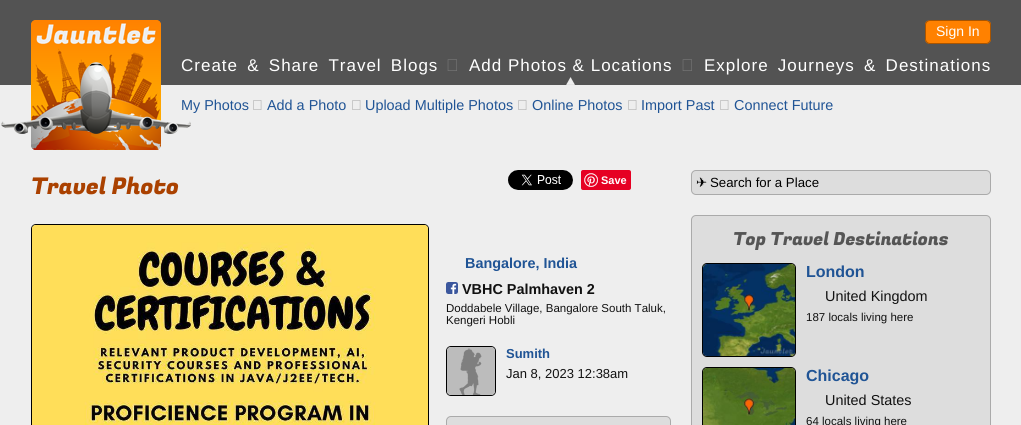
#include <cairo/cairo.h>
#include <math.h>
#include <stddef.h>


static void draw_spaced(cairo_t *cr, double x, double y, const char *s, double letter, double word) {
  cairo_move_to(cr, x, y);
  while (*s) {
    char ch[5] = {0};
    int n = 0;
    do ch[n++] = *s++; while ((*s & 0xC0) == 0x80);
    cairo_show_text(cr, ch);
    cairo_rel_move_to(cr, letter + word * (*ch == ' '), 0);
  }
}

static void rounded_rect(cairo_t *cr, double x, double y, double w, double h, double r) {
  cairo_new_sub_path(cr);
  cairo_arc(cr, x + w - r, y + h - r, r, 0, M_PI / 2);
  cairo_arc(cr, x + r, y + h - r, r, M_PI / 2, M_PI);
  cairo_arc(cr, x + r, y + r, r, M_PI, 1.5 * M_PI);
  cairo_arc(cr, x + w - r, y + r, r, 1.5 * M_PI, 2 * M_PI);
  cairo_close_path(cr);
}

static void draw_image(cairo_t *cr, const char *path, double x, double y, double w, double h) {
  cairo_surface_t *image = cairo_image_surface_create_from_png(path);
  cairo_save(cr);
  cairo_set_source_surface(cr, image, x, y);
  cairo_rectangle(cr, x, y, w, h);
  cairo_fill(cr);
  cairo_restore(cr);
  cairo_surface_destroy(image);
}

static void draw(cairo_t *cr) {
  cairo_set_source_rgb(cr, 238 / 255.0, 238 / 255.0, 238 / 255.0);
  cairo_paint(cr);
  cairo_set_source_rgb(cr, 83 / 255.0, 83 / 255.0, 83 / 255.0);
  cairo_rectangle(cr, 0, 0, 1021, 85);
  cairo_fill(cr);
  draw_image(cr, "images/1.png", 31, 20, 130, 65);
  draw_image(cr, "images/2.png", 925, 20, 66, 24);
  rounded_rect(cr, 925.5, 20.5, 65, 23, 4.5);
  cairo_set_source_rgb(cr, 168 / 255.0, 84 / 255.0, 0);
  cairo_set_line_width(cr, 1);
  cairo_stroke(cr);
  draw_image(cr, "images/3.png", 447, 59, 10, 12);
  draw_image(cr, "images/4.png", 566, 77, 9, 8);
  draw_image(cr, "images/3.png", 682, 59, 10, 12);
  draw_image(cr, "images/5.png", 1, 120, 190, 14);
  draw_image(cr, "images/6.png", 31, 85, 130, 65);
  draw_image(cr, "images/7.png", 253, 100, 9, 10);
  draw_image(cr, "images/7.png", 352, 100, 9, 10);
  draw_image(cr, "images/7.png", 518, 100, 9, 10);
  draw_image(cr, "images/7.png", 628, 100, 9, 10);
  draw_image(cr, "images/7.png", 720, 100, 9, 10);
  draw_image(cr, "images/8.png", 508, 170, 65, 20);
  cairo_set_source_rgb(cr, 230 / 255.0, 0, 35 / 255.0);
  rounded_rect(cr, 581, 170, 50, 20, 2);
  cairo_fill(cr);
  draw_image(cr, "images/9.png", 584, 173, 14, 14);
  rounded_rect(cr, 31.5, 224.5, 397, 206, 4.5);
  cairo_set_source_rgb(cr, 0, 0, 0);
  cairo_stroke(cr);
  draw_image(cr, "images/10.png", 32, 225, 396, 200);
  draw_image(cr, "images/11.png", 446, 282, 12, 12);
  rounded_rect(cr, 446.5, 346.5, 49, 49, 4.5);
  cairo_stroke(cr);
  draw_image(cr, "images/12.png", 447, 347, 48, 48);
  cairo_set_source_rgb(cr, 221 / 255.0, 221 / 255.0, 221 / 255.0);
  rounded_rect(cr, 446.5, 416.5, 224, 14, 4.5);
  cairo_fill_preserve(cr);
  cairo_set_source_rgb(cr, 170 / 255.0, 170 / 255.0, 170 / 255.0);
  cairo_stroke(cr);
  cairo_set_source_rgb(cr, 221 / 255.0, 221 / 255.0, 221 / 255.0);
  rounded_rect(cr, 691.5, 170.5, 299, 24, 4.5);
  cairo_fill_preserve(cr);
  cairo_set_source_rgb(cr, 170 / 255.0, 170 / 255.0, 170 / 255.0);
  cairo_stroke(cr);
  cairo_set_source_rgb(cr, 221 / 255.0, 221 / 255.0, 221 / 255.0);
  rounded_rect(cr, 691.5, 215.5, 299, 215, 4.5);
  cairo_fill_preserve(cr);
  cairo_set_source_rgb(cr, 170 / 255.0, 170 / 255.0, 170 / 255.0);
  cairo_stroke(cr);
  rounded_rect(cr, 702.5, 263.5, 93, 93, 4.5);
  cairo_set_source_rgb(cr, 0, 0, 0);
  cairo_stroke(cr);
  draw_image(cr, "images/13.png", 703, 264, 92, 92);
  rounded_rect(cr, 702.5, 367.5, 93, 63, 4.5);
  cairo_stroke(cr);
  draw_image(cr, "images/14.png", 703, 368, 92, 57);
  cairo_select_font_face(cr, "Liberation Sans", CAIRO_FONT_SLANT_NORMAL, CAIRO_FONT_WEIGHT_NORMAL);
  cairo_set_font_size(cr, 14);
  cairo_set_source_rgb(cr, 1, 1, 1);
  cairo_move_to(cr, 936, 36);
  cairo_show_text(cr, "Sign In");
  cairo_set_font_size(cr, 17);
  draw_spaced(cr, 181, 71, "Create & Share Travel Blogs", 1, 3.5);
  draw_spaced(cr, 469, 71, "Add Photos & Locations", 1, 0);
  draw_spaced(cr, 704, 71, "Explore Journeys & Destinations", 1, 3.5);
  cairo_set_font_size(cr, 14.4);
  cairo_set_source_rgb(cr, 32 / 255.0, 84 / 255.0, 149 / 255.0);
  cairo_move_to(cr, 181, 110);
  cairo_show_text(cr, "My Photos");
  cairo_move_to(cr, 267, 110);
  cairo_show_text(cr, "Add a Photo");
  cairo_move_to(cr, 365, 110);
  cairo_show_text(cr, "Upload Multiple Photos");
  cairo_move_to(cr, 532, 110);
  cairo_show_text(cr, "Online Photos");
  cairo_move_to(cr, 641, 110);
  cairo_show_text(cr, "Import Past");
  cairo_move_to(cr, 734, 110);
  cairo_show_text(cr, "Connect Future");
  cairo_select_font_face(cr, "Fugaz One", CAIRO_FONT_SLANT_NORMAL, CAIRO_FONT_WEIGHT_NORMAL);
  cairo_set_font_size(cr, 23);
  cairo_set_source_rgb(cr, 170 / 255.0, 65 / 255.0, 0);
  cairo_move_to(cr, 31, 194);
  cairo_show_text(cr, "Travel Photo");
  cairo_select_font_face(cr, "Liberation Sans", CAIRO_FONT_SLANT_NORMAL, CAIRO_FONT_WEIGHT_BOLD);
  cairo_set_font_size(cr, 11);
  cairo_set_source_rgb(cr, 1, 1, 1);
  cairo_move_to(cr, 601, 184);
  cairo_show_text(cr, "Save");
  cairo_set_font_size(cr, 14.4);
  cairo_set_source_rgb(cr, 32 / 255.0, 84 / 255.0, 149 / 255.0);
  cairo_move_to(cr, 465, 268);
  cairo_show_text(cr, "Bangalore, India");
  cairo_set_source_rgb(cr, 17 / 255.0, 17 / 255.0, 17 / 255.0);
  cairo_move_to(cr, 462, 294);
  cairo_show_text(cr, "VBHC Palmhaven 2");
  cairo_select_font_face(cr, "Liberation Sans", CAIRO_FONT_SLANT_NORMAL, CAIRO_FONT_WEIGHT_NORMAL);
  cairo_set_font_size(cr, 11.5);
  cairo_move_to(cr, 446, 312);
  cairo_show_text(cr, "Doddabele Village, Bangalore South Taluk,");
  cairo_move_to(cr, 446, 324);
  cairo_show_text(cr, "Kengeri Hobli");
  cairo_select_font_face(cr, "Liberation Sans", CAIRO_FONT_SLANT_NORMAL, CAIRO_FONT_WEIGHT_BOLD);
  cairo_set_font_size(cr, 13);
  cairo_set_source_rgb(cr, 32 / 255.0, 84 / 255.0, 149 / 255.0);
  cairo_move_to(cr, 506, 358);
  cairo_show_text(cr, "Sumith");
  cairo_select_font_face(cr, "Liberation Sans", CAIRO_FONT_SLANT_NORMAL, CAIRO_FONT_WEIGHT_NORMAL);
  cairo_set_source_rgb(cr, 17 / 255.0, 17 / 255.0, 17 / 255.0);
  cairo_move_to(cr, 506, 378);
  cairo_show_text(cr, "Jan 8, 2023 12:38am");
  cairo_select_font_face(cr, "DejaVu Sans", CAIRO_FONT_SLANT_NORMAL, CAIRO_FONT_WEIGHT_NORMAL);
  cairo_set_font_size(cr, 13.25);
  cairo_set_source_rgb(cr, 0, 0, 0);
  cairo_move_to(cr, 696, 187);
  cairo_show_text(cr, "✈");
  cairo_select_font_face(cr, "Liberation Sans", CAIRO_FONT_SLANT_NORMAL, CAIRO_FONT_WEIGHT_NORMAL);
  cairo_move_to(cr, 710, 187);
  cairo_show_text(cr, "Search for a Place");
  cairo_select_font_face(cr, "Fugaz One", CAIRO_FONT_SLANT_NORMAL, CAIRO_FONT_WEIGHT_NORMAL);
  cairo_set_font_size(cr, 18);
  cairo_set_source_rgb(cr, 85 / 255.0, 85 / 255.0, 85 / 255.0);
  cairo_move_to(cr, 733, 245);
  cairo_show_text(cr, "Top Travel Destinations");
  cairo_select_font_face(cr, "Liberation Sans", CAIRO_FONT_SLANT_NORMAL, CAIRO_FONT_WEIGHT_BOLD);
  cairo_set_font_size(cr, 16);
  cairo_set_source_rgb(cr, 32 / 255.0, 84 / 255.0, 149 / 255.0);
  cairo_move_to(cr, 806, 277);
  cairo_show_text(cr, "London");
  cairo_select_font_face(cr, "Liberation Sans", CAIRO_FONT_SLANT_NORMAL, CAIRO_FONT_WEIGHT_NORMAL);
  cairo_set_font_size(cr, 14.4);
  cairo_set_source_rgb(cr, 17 / 255.0, 17 / 255.0, 17 / 255.0);
  cairo_move_to(cr, 825, 301);
  cairo_show_text(cr, "United Kingdom");
  cairo_set_font_size(cr, 11.5);
  cairo_move_to(cr, 806, 321);
  cairo_show_text(cr, "187 locals living here");
  cairo_select_font_face(cr, "Liberation Sans", CAIRO_FONT_SLANT_NORMAL, CAIRO_FONT_WEIGHT_BOLD);
  cairo_set_font_size(cr, 16);
  cairo_set_source_rgb(cr, 32 / 255.0, 84 / 255.0, 149 / 255.0);
  cairo_move_to(cr, 806, 381);
  cairo_show_text(cr, "Chicago");
  cairo_select_font_face(cr, "Liberation Sans", CAIRO_FONT_SLANT_NORMAL, CAIRO_FONT_WEIGHT_NORMAL);
  cairo_set_font_size(cr, 14.4);
  cairo_set_source_rgb(cr, 17 / 255.0, 17 / 255.0, 17 / 255.0);
  cairo_move_to(cr, 825, 405);
  cairo_show_text(cr, "United States");
  cairo_set_font_size(cr, 11.5);
  cairo_move_to(cr, 806, 425);
  cairo_show_text(cr, "64 locals living here");
}

int main(void) {
  cairo_surface_t *surface = cairo_image_surface_create(CAIRO_FORMAT_RGB24, 1021, 425);
  cairo_t *cr = cairo_create(surface);
  cairo_font_options_t *options = cairo_font_options_create();
  cairo_font_options_set_hint_metrics(options, CAIRO_HINT_METRICS_OFF);
  cairo_font_options_set_hint_style(options, CAIRO_HINT_STYLE_NONE);
  cairo_set_font_options(cr, options);
  cairo_set_miter_limit(cr, 4);
  draw(cr);
  cairo_surface_write_to_png(surface, "out.png");
  cairo_font_options_destroy(options);
  cairo_destroy(cr);
  cairo_surface_destroy(surface);
  return 0;
}
